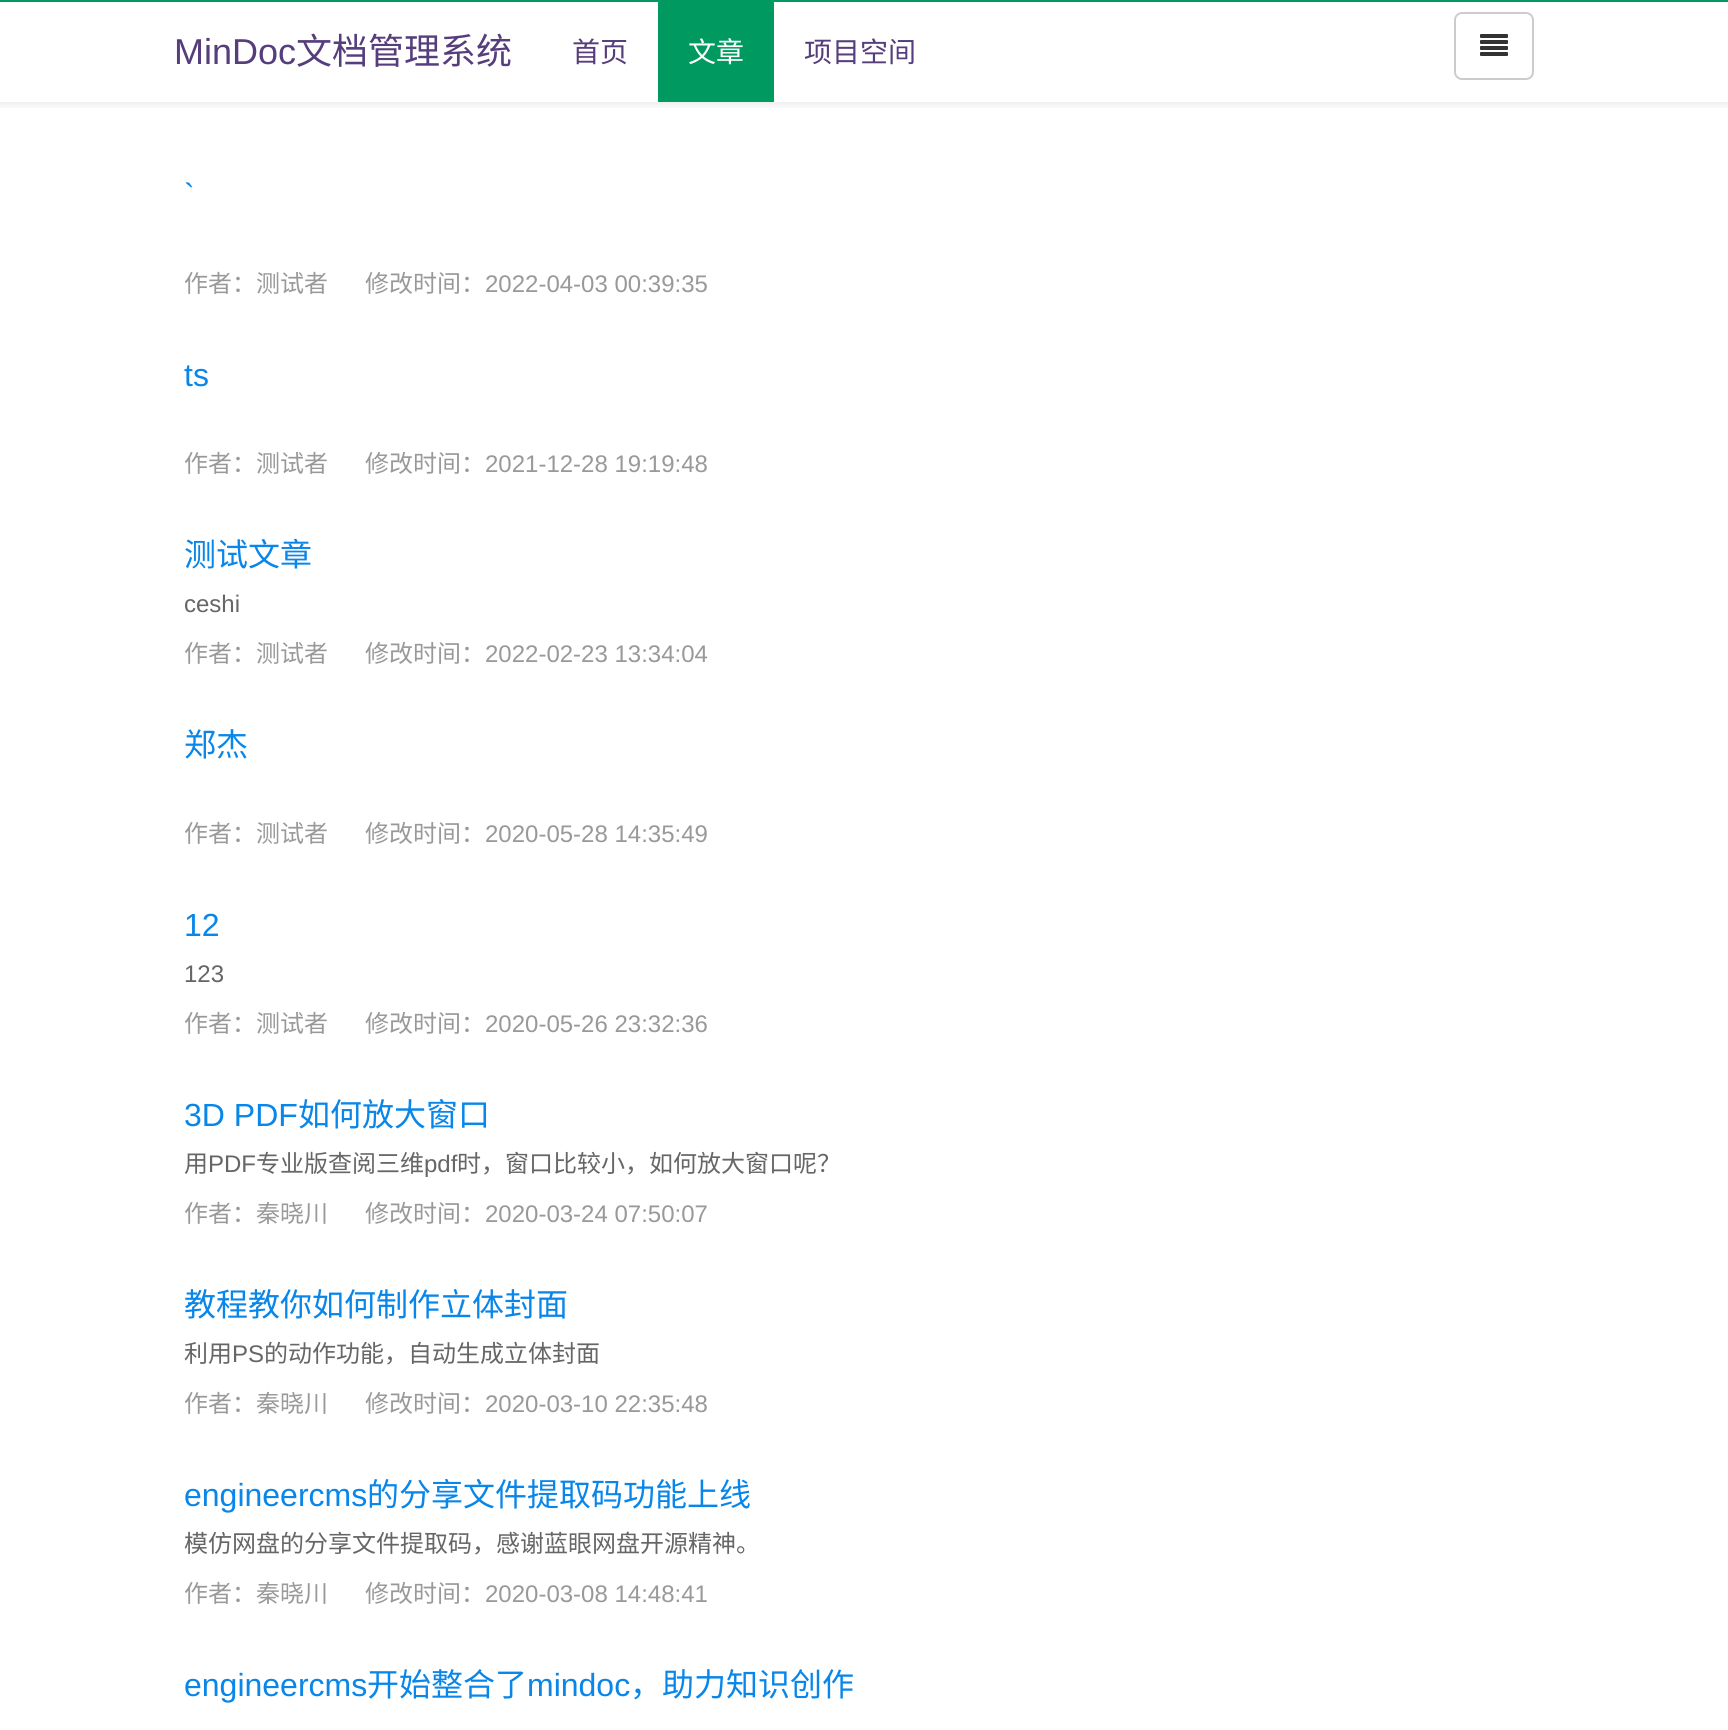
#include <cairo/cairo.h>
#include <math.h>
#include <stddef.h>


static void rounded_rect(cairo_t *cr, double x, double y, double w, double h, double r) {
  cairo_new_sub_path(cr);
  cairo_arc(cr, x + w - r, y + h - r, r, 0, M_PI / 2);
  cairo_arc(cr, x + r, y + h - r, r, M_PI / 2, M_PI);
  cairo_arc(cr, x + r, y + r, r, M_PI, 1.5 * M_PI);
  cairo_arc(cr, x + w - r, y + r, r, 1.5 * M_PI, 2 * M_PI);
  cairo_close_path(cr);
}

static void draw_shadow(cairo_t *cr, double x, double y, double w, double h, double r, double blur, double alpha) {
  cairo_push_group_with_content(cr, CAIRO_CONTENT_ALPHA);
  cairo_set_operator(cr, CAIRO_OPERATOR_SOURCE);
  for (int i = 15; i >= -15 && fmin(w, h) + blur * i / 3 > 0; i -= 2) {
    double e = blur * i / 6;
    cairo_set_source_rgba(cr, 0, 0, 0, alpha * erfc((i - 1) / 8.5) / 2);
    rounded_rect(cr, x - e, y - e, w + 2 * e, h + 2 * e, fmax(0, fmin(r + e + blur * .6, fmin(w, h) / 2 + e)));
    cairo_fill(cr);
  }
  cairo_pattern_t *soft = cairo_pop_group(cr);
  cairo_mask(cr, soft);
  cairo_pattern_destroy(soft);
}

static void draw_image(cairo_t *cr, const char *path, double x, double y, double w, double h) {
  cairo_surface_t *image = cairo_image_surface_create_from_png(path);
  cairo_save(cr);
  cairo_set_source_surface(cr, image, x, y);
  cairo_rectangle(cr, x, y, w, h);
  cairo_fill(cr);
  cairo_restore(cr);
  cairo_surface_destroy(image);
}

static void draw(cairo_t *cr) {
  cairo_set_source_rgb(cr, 1, 1, 1);
  cairo_paint(cr);
  cairo_save(cr);
  cairo_rectangle(cr, 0, 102, 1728, 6);
  cairo_clip(cr);
  cairo_set_source_rgb(cr, 0, 0, 0);
  draw_shadow(cr, 0, 2, 1728, 102, 0, 5, 0.1);
  cairo_restore(cr);
  cairo_set_source_rgb(cr, 0, 154 / 255.0, 97 / 255.0);
  cairo_rectangle(cr, 0, 0, 1728, 2);
  cairo_fill(cr);
  cairo_rectangle(cr, 658, 2, 116, 100);
  cairo_fill(cr);
  rounded_rect(cr, 1455, 13, 78, 66, 7);
  cairo_set_source_rgb(cr, 204 / 255.0, 204 / 255.0, 204 / 255.0);
  cairo_stroke(cr);
  draw_image(cr, "images/1.png", 1480, 34, 28, 22);
  cairo_select_font_face(cr, "Liberation Sans", CAIRO_FONT_SLANT_NORMAL, CAIRO_FONT_WEIGHT_NORMAL);
  cairo_set_font_size(cr, 36);
  cairo_set_source_rgb(cr, 86 / 255.0, 61 / 255.0, 124 / 255.0);
  cairo_move_to(cr, 174, 64);
  cairo_show_text(cr, "MinDoc");
  cairo_select_font_face(cr, "Noto Sans CJK SC", CAIRO_FONT_SLANT_NORMAL, CAIRO_FONT_WEIGHT_NORMAL);
  cairo_move_to(cr, 296, 64);
  cairo_show_text(cr, "文档管理系统");
  cairo_set_font_size(cr, 28);
  cairo_move_to(cr, 572, 62);
  cairo_show_text(cr, "首页");
  cairo_set_source_rgb(cr, 1, 1, 1);
  cairo_move_to(cr, 688, 62);
  cairo_show_text(cr, "文章");
  cairo_set_source_rgb(cr, 86 / 255.0, 61 / 255.0, 124 / 255.0);
  cairo_move_to(cr, 804, 62);
  cairo_show_text(cr, "项目空间");
  cairo_select_font_face(cr, "Liberation Sans", CAIRO_FONT_SLANT_NORMAL, CAIRO_FONT_WEIGHT_NORMAL);
  cairo_set_font_size(cr, 32);
  cairo_set_source_rgb(cr, 8 / 255.0, 134 / 255.0, 233 / 255.0);
  cairo_move_to(cr, 184, 206);
  cairo_show_text(cr, "`");
  cairo_select_font_face(cr, "Noto Sans CJK SC", CAIRO_FONT_SLANT_NORMAL, CAIRO_FONT_WEIGHT_NORMAL);
  cairo_set_font_size(cr, 24);
  cairo_set_source_rgb(cr, 153 / 255.0, 153 / 255.0, 153 / 255.0);
  cairo_move_to(cr, 184, 292);
  cairo_show_text(cr, "作者：测试者");
  cairo_move_to(cr, 365, 292);
  cairo_show_text(cr, "修改时间：");
  cairo_select_font_face(cr, "Liberation Sans", CAIRO_FONT_SLANT_NORMAL, CAIRO_FONT_WEIGHT_NORMAL);
  cairo_move_to(cr, 485, 292);
  cairo_show_text(cr, "2022-04-03 00:39:35");
  cairo_set_font_size(cr, 32);
  cairo_set_source_rgb(cr, 8 / 255.0, 134 / 255.0, 233 / 255.0);
  cairo_move_to(cr, 184, 386);
  cairo_show_text(cr, "ts");
  cairo_select_font_face(cr, "Noto Sans CJK SC", CAIRO_FONT_SLANT_NORMAL, CAIRO_FONT_WEIGHT_NORMAL);
  cairo_set_font_size(cr, 24);
  cairo_set_source_rgb(cr, 153 / 255.0, 153 / 255.0, 153 / 255.0);
  cairo_move_to(cr, 184, 472);
  cairo_show_text(cr, "作者：测试者");
  cairo_move_to(cr, 365, 472);
  cairo_show_text(cr, "修改时间：");
  cairo_select_font_face(cr, "Liberation Sans", CAIRO_FONT_SLANT_NORMAL, CAIRO_FONT_WEIGHT_NORMAL);
  cairo_move_to(cr, 485, 472);
  cairo_show_text(cr, "2021-12-28 19:19:48");
  cairo_select_font_face(cr, "Noto Sans CJK SC", CAIRO_FONT_SLANT_NORMAL, CAIRO_FONT_WEIGHT_NORMAL);
  cairo_set_font_size(cr, 32);
  cairo_set_source_rgb(cr, 8 / 255.0, 134 / 255.0, 233 / 255.0);
  cairo_move_to(cr, 184, 566);
  cairo_show_text(cr, "测试文章");
  cairo_select_font_face(cr, "Liberation Sans", CAIRO_FONT_SLANT_NORMAL, CAIRO_FONT_WEIGHT_NORMAL);
  cairo_set_font_size(cr, 24);
  cairo_set_source_rgb(cr, 102 / 255.0, 102 / 255.0, 102 / 255.0);
  cairo_move_to(cr, 184, 612);
  cairo_show_text(cr, "ceshi");
  cairo_select_font_face(cr, "Noto Sans CJK SC", CAIRO_FONT_SLANT_NORMAL, CAIRO_FONT_WEIGHT_NORMAL);
  cairo_set_source_rgb(cr, 153 / 255.0, 153 / 255.0, 153 / 255.0);
  cairo_move_to(cr, 184, 662);
  cairo_show_text(cr, "作者：测试者");
  cairo_move_to(cr, 365, 662);
  cairo_show_text(cr, "修改时间：");
  cairo_select_font_face(cr, "Liberation Sans", CAIRO_FONT_SLANT_NORMAL, CAIRO_FONT_WEIGHT_NORMAL);
  cairo_move_to(cr, 485, 662);
  cairo_show_text(cr, "2022-02-23 13:34:04");
  cairo_select_font_face(cr, "Noto Sans CJK SC", CAIRO_FONT_SLANT_NORMAL, CAIRO_FONT_WEIGHT_NORMAL);
  cairo_set_font_size(cr, 32);
  cairo_set_source_rgb(cr, 8 / 255.0, 134 / 255.0, 233 / 255.0);
  cairo_move_to(cr, 184, 756);
  cairo_show_text(cr, "郑杰");
  cairo_set_font_size(cr, 24);
  cairo_set_source_rgb(cr, 153 / 255.0, 153 / 255.0, 153 / 255.0);
  cairo_move_to(cr, 184, 842);
  cairo_show_text(cr, "作者：测试者");
  cairo_move_to(cr, 365, 842);
  cairo_show_text(cr, "修改时间：");
  cairo_select_font_face(cr, "Liberation Sans", CAIRO_FONT_SLANT_NORMAL, CAIRO_FONT_WEIGHT_NORMAL);
  cairo_move_to(cr, 485, 842);
  cairo_show_text(cr, "2020-05-28 14:35:49");
  cairo_set_font_size(cr, 32);
  cairo_set_source_rgb(cr, 8 / 255.0, 134 / 255.0, 233 / 255.0);
  cairo_move_to(cr, 184, 936);
  cairo_show_text(cr, "12");
  cairo_set_font_size(cr, 24);
  cairo_set_source_rgb(cr, 102 / 255.0, 102 / 255.0, 102 / 255.0);
  cairo_move_to(cr, 184, 982);
  cairo_show_text(cr, "123");
  cairo_select_font_face(cr, "Noto Sans CJK SC", CAIRO_FONT_SLANT_NORMAL, CAIRO_FONT_WEIGHT_NORMAL);
  cairo_set_source_rgb(cr, 153 / 255.0, 153 / 255.0, 153 / 255.0);
  cairo_move_to(cr, 184, 1032);
  cairo_show_text(cr, "作者：测试者");
  cairo_move_to(cr, 365, 1032);
  cairo_show_text(cr, "修改时间：");
  cairo_select_font_face(cr, "Liberation Sans", CAIRO_FONT_SLANT_NORMAL, CAIRO_FONT_WEIGHT_NORMAL);
  cairo_move_to(cr, 485, 1032);
  cairo_show_text(cr, "2020-05-26 23:32:36");
  cairo_set_font_size(cr, 32);
  cairo_set_source_rgb(cr, 8 / 255.0, 134 / 255.0, 233 / 255.0);
  cairo_move_to(cr, 184, 1126);
  cairo_show_text(cr, "3D PDF");
  cairo_select_font_face(cr, "Noto Sans CJK SC", CAIRO_FONT_SLANT_NORMAL, CAIRO_FONT_WEIGHT_NORMAL);
  cairo_move_to(cr, 298, 1126);
  cairo_show_text(cr, "如何放大窗口");
  cairo_set_font_size(cr, 24);
  cairo_set_source_rgb(cr, 102 / 255.0, 102 / 255.0, 102 / 255.0);
  cairo_move_to(cr, 184, 1172);
  cairo_show_text(cr, "用");
  cairo_select_font_face(cr, "Liberation Sans", CAIRO_FONT_SLANT_NORMAL, CAIRO_FONT_WEIGHT_NORMAL);
  cairo_move_to(cr, 208, 1172);
  cairo_show_text(cr, "PDF");
  cairo_select_font_face(cr, "Noto Sans CJK SC", CAIRO_FONT_SLANT_NORMAL, CAIRO_FONT_WEIGHT_NORMAL);
  cairo_move_to(cr, 256, 1172);
  cairo_show_text(cr, "专业版查阅三维");
  cairo_select_font_face(cr, "Liberation Sans", CAIRO_FONT_SLANT_NORMAL, CAIRO_FONT_WEIGHT_NORMAL);
  cairo_move_to(cr, 424, 1172);
  cairo_show_text(cr, "pdf");
  cairo_select_font_face(cr, "Noto Sans CJK SC", CAIRO_FONT_SLANT_NORMAL, CAIRO_FONT_WEIGHT_NORMAL);
  cairo_move_to(cr, 457, 1172);
  cairo_show_text(cr, "时，窗口比较小，如何放大窗口呢？");
  cairo_set_source_rgb(cr, 153 / 255.0, 153 / 255.0, 153 / 255.0);
  cairo_move_to(cr, 184, 1222);
  cairo_show_text(cr, "作者：秦晓川");
  cairo_move_to(cr, 365, 1222);
  cairo_show_text(cr, "修改时间：");
  cairo_select_font_face(cr, "Liberation Sans", CAIRO_FONT_SLANT_NORMAL, CAIRO_FONT_WEIGHT_NORMAL);
  cairo_move_to(cr, 485, 1222);
  cairo_show_text(cr, "2020-03-24 07:50:07");
  cairo_select_font_face(cr, "Noto Sans CJK SC", CAIRO_FONT_SLANT_NORMAL, CAIRO_FONT_WEIGHT_NORMAL);
  cairo_set_font_size(cr, 32);
  cairo_set_source_rgb(cr, 8 / 255.0, 134 / 255.0, 233 / 255.0);
  cairo_move_to(cr, 184, 1316);
  cairo_show_text(cr, "教程教你如何制作立体封面");
  cairo_set_font_size(cr, 24);
  cairo_set_source_rgb(cr, 102 / 255.0, 102 / 255.0, 102 / 255.0);
  cairo_move_to(cr, 184, 1362);
  cairo_show_text(cr, "利用");
  cairo_select_font_face(cr, "Liberation Sans", CAIRO_FONT_SLANT_NORMAL, CAIRO_FONT_WEIGHT_NORMAL);
  cairo_move_to(cr, 232, 1362);
  cairo_show_text(cr, "PS");
  cairo_select_font_face(cr, "Noto Sans CJK SC", CAIRO_FONT_SLANT_NORMAL, CAIRO_FONT_WEIGHT_NORMAL);
  cairo_move_to(cr, 264, 1362);
  cairo_show_text(cr, "的动作功能，自动生成立体封面");
  cairo_set_source_rgb(cr, 153 / 255.0, 153 / 255.0, 153 / 255.0);
  cairo_move_to(cr, 184, 1412);
  cairo_show_text(cr, "作者：秦晓川");
  cairo_move_to(cr, 365, 1412);
  cairo_show_text(cr, "修改时间：");
  cairo_select_font_face(cr, "Liberation Sans", CAIRO_FONT_SLANT_NORMAL, CAIRO_FONT_WEIGHT_NORMAL);
  cairo_move_to(cr, 485, 1412);
  cairo_show_text(cr, "2020-03-10 22:35:48");
  cairo_set_font_size(cr, 32);
  cairo_set_source_rgb(cr, 8 / 255.0, 134 / 255.0, 233 / 255.0);
  cairo_move_to(cr, 184, 1506);
  cairo_show_text(cr, "engineercms");
  cairo_select_font_face(cr, "Noto Sans CJK SC", CAIRO_FONT_SLANT_NORMAL, CAIRO_FONT_WEIGHT_NORMAL);
  cairo_move_to(cr, 367, 1506);
  cairo_show_text(cr, "的分享文件提取码功能上线");
  cairo_set_font_size(cr, 24);
  cairo_set_source_rgb(cr, 102 / 255.0, 102 / 255.0, 102 / 255.0);
  cairo_move_to(cr, 184, 1552);
  cairo_show_text(cr, "模仿网盘的分享文件提取码，感谢蓝眼网盘开源精神。");
  cairo_set_source_rgb(cr, 153 / 255.0, 153 / 255.0, 153 / 255.0);
  cairo_move_to(cr, 184, 1602);
  cairo_show_text(cr, "作者：秦晓川");
  cairo_move_to(cr, 365, 1602);
  cairo_show_text(cr, "修改时间：");
  cairo_select_font_face(cr, "Liberation Sans", CAIRO_FONT_SLANT_NORMAL, CAIRO_FONT_WEIGHT_NORMAL);
  cairo_move_to(cr, 485, 1602);
  cairo_show_text(cr, "2020-03-08 14:48:41");
  cairo_set_font_size(cr, 32);
  cairo_set_source_rgb(cr, 8 / 255.0, 134 / 255.0, 233 / 255.0);
  cairo_move_to(cr, 184, 1696);
  cairo_show_text(cr, "engineercms");
  cairo_select_font_face(cr, "Noto Sans CJK SC", CAIRO_FONT_SLANT_NORMAL, CAIRO_FONT_WEIGHT_NORMAL);
  cairo_move_to(cr, 367, 1696);
  cairo_show_text(cr, "开始整合了");
  cairo_select_font_face(cr, "Liberation Sans", CAIRO_FONT_SLANT_NORMAL, CAIRO_FONT_WEIGHT_NORMAL);
  cairo_move_to(cr, 527, 1696);
  cairo_show_text(cr, "mindoc");
  cairo_select_font_face(cr, "Noto Sans CJK SC", CAIRO_FONT_SLANT_NORMAL, CAIRO_FONT_WEIGHT_NORMAL);
  cairo_move_to(cr, 630, 1696);
  cairo_show_text(cr, "，助力知识创作");
}

int main(void) {
  cairo_surface_t *surface = cairo_image_surface_create(CAIRO_FORMAT_RGB24, 1728, 1730);
  cairo_t *cr = cairo_create(surface);
  cairo_font_options_t *options = cairo_font_options_create();
  cairo_font_options_set_hint_metrics(options, CAIRO_HINT_METRICS_OFF);
  cairo_font_options_set_hint_style(options, CAIRO_HINT_STYLE_NONE);
  cairo_set_font_options(cr, options);
  cairo_set_miter_limit(cr, 4);
  draw(cr);
  cairo_surface_write_to_png(surface, "out.png");
  cairo_font_options_destroy(options);
  cairo_destroy(cr);
  cairo_surface_destroy(surface);
  return 0;
}
